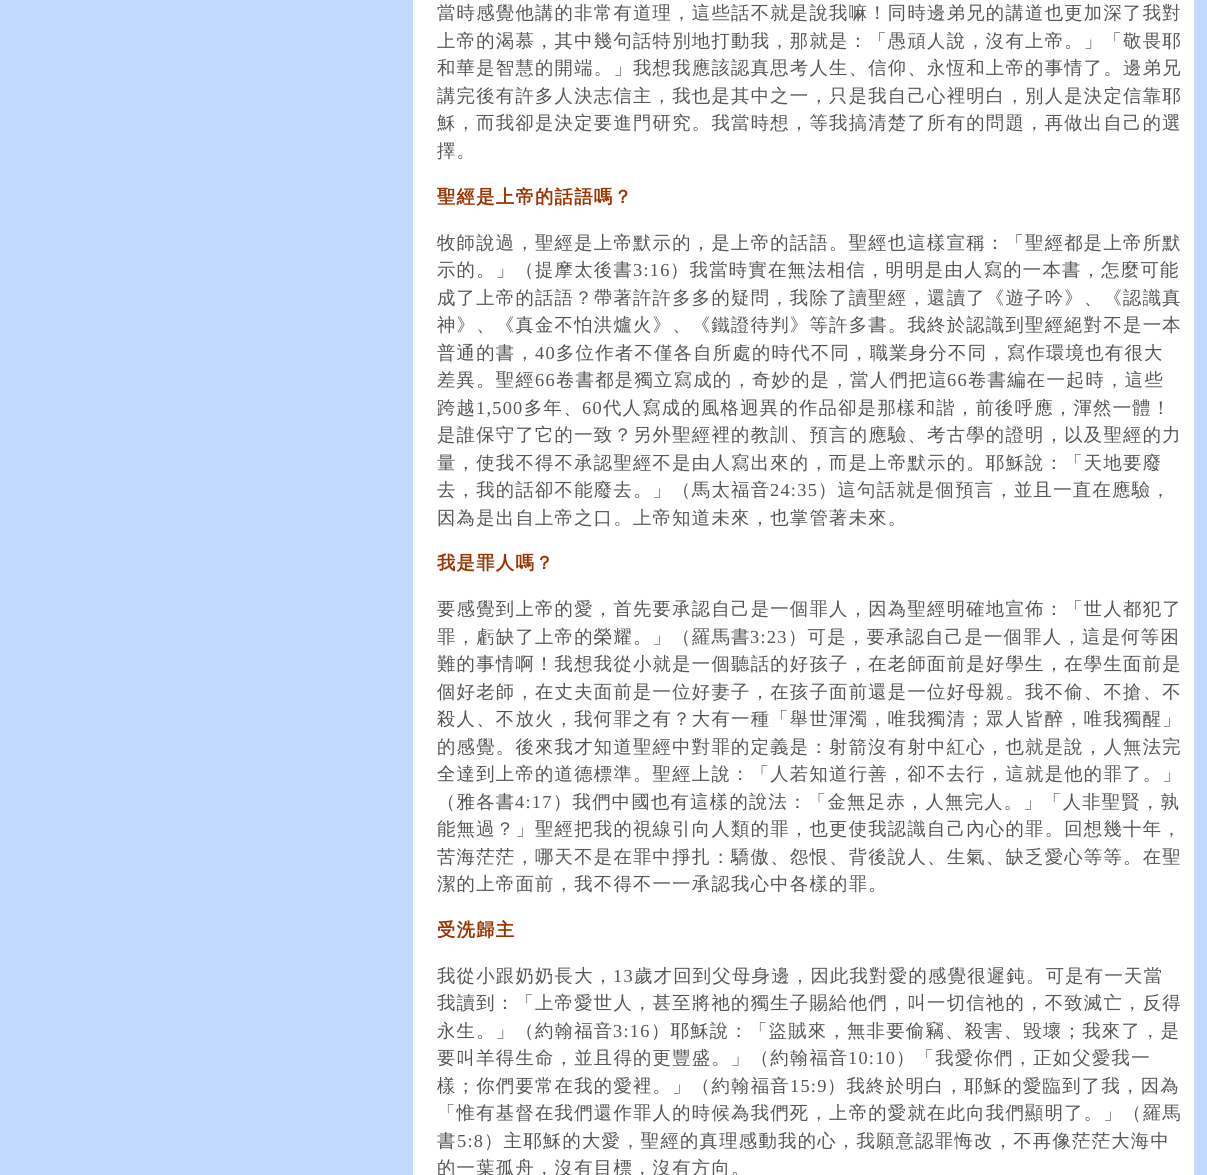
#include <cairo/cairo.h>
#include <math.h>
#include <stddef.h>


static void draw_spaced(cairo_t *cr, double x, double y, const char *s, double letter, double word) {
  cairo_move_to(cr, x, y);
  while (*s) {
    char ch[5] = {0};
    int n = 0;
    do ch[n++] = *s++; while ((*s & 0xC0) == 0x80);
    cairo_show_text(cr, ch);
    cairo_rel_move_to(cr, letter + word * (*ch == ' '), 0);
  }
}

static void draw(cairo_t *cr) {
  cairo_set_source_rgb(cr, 195 / 255.0, 217 / 255.0, 1);
  cairo_paint(cr);
  cairo_set_source_rgb(cr, 1, 1, 1);
  cairo_rectangle(cr, 413, 0, 781, 1175);
  cairo_fill(cr);
  cairo_select_font_face(cr, "WenQuanYi Zen Hei Medium", CAIRO_FONT_SLANT_NORMAL, CAIRO_FONT_WEIGHT_NORMAL);
  cairo_set_font_size(cr, 18.35);
  cairo_set_source_rgb(cr, 85 / 255.0, 85 / 255.0, 85 / 255.0);
  draw_spaced(cr, 437, 19, "當時感覺他講的非常有道理，這些話不就是說我嘛！同時邊弟兄的講道也更加深了我對", 1.25, 0);
  draw_spaced(cr, 437, 47, "上帝的渴慕，其中幾句話特別地打動我，那就是：「愚頑人說，沒有上帝。」「敬畏耶", 1.25, 0);
  draw_spaced(cr, 437, 74, "和華是智慧的開端。」我想我應該認真思考人生、信仰、永恆和上帝的事情了。邊弟兄", 1.25, 0);
  draw_spaced(cr, 437, 102, "講完後有許多人決志信主，我也是其中之一，只是我自己心裡明白，別人是決定信靠耶", 1.25, 0);
  draw_spaced(cr, 437, 129, "穌，而我卻是決定要進門研究。我當時想，等我搞清楚了所有的問題，再做出自己的選", 1.25, 0);
  draw_spaced(cr, 437, 157, "擇。", 1.25, 0);
  cairo_select_font_face(cr, "WenQuanYi Zen Hei", CAIRO_FONT_SLANT_NORMAL, CAIRO_FONT_WEIGHT_BOLD);
  cairo_set_source_rgb(cr, 153 / 255.0, 51 / 255.0, 0);
  draw_spaced(cr, 437, 203, "聖經是上帝的話語嗎？", 1.25, 0);
  cairo_select_font_face(cr, "WenQuanYi Zen Hei Medium", CAIRO_FONT_SLANT_NORMAL, CAIRO_FONT_WEIGHT_NORMAL);
  cairo_set_source_rgb(cr, 85 / 255.0, 85 / 255.0, 85 / 255.0);
  draw_spaced(cr, 437, 249, "牧師說過，聖經是上帝默示的，是上帝的話語。聖經也這樣宣稱：「聖經都是上帝所默", 1.25, 0);
  draw_spaced(cr, 437, 276, "示的。」（提摩太後書", 1.25, 0);
  cairo_select_font_face(cr, "Liberation Serif", CAIRO_FONT_SLANT_NORMAL, CAIRO_FONT_WEIGHT_NORMAL);
  draw_spaced(cr, 633, 276, "3:16", 1.25, 0);
  cairo_select_font_face(cr, "WenQuanYi Zen Hei Medium", CAIRO_FONT_SLANT_NORMAL, CAIRO_FONT_WEIGHT_NORMAL);
  draw_spaced(cr, 670, 276, "）我當時實在無法相信，明明是由人寫的一本書，怎麼可能", 1.25, 0);
  draw_spaced(cr, 437, 304, "成了上帝的話語？帶著許許多多的疑問，我除了讀聖經，還讀了《遊子吟》、《認識真", 1.25, 0);
  draw_spaced(cr, 437, 331, "神》、《真金不怕洪爐火》、《鐵證待判》等許多書。我終於認識到聖經絕對不是一本", 1.25, 0);
  draw_spaced(cr, 437, 359, "普通的書，", 1.25, 0);
  cairo_select_font_face(cr, "Liberation Serif", CAIRO_FONT_SLANT_NORMAL, CAIRO_FONT_WEIGHT_NORMAL);
  draw_spaced(cr, 535, 359, "40", 1.25, 0);
  cairo_select_font_face(cr, "WenQuanYi Zen Hei Medium", CAIRO_FONT_SLANT_NORMAL, CAIRO_FONT_WEIGHT_NORMAL);
  draw_spaced(cr, 556, 359, "多位作者不僅各自所處的時代不同，職業身分不同，寫作環境也有很大", 1.25, 0);
  draw_spaced(cr, 437, 386, "差異。聖經", 1.25, 0);
  cairo_select_font_face(cr, "Liberation Serif", CAIRO_FONT_SLANT_NORMAL, CAIRO_FONT_WEIGHT_NORMAL);
  draw_spaced(cr, 535, 386, "66", 1.25, 0);
  cairo_select_font_face(cr, "WenQuanYi Zen Hei Medium", CAIRO_FONT_SLANT_NORMAL, CAIRO_FONT_WEIGHT_NORMAL);
  draw_spaced(cr, 556, 386, "卷書都是獨立寫成的，奇妙的是，當人們把這", 1.25, 0);
  cairo_select_font_face(cr, "Liberation Serif", CAIRO_FONT_SLANT_NORMAL, CAIRO_FONT_WEIGHT_NORMAL);
  draw_spaced(cr, 947, 386, "66", 1.25, 0);
  cairo_select_font_face(cr, "WenQuanYi Zen Hei Medium", CAIRO_FONT_SLANT_NORMAL, CAIRO_FONT_WEIGHT_NORMAL);
  draw_spaced(cr, 968, 386, "卷書編在一起時，這些", 1.25, 0);
  draw_spaced(cr, 437, 414, "跨越", 1.25, 0);
  cairo_select_font_face(cr, "Liberation Serif", CAIRO_FONT_SLANT_NORMAL, CAIRO_FONT_WEIGHT_NORMAL);
  draw_spaced(cr, 476, 414, "1,500", 1.25, 0);
  cairo_select_font_face(cr, "WenQuanYi Zen Hei Medium", CAIRO_FONT_SLANT_NORMAL, CAIRO_FONT_WEIGHT_NORMAL);
  draw_spaced(cr, 524, 414, "多年、", 1.25, 0);
  cairo_select_font_face(cr, "Liberation Serif", CAIRO_FONT_SLANT_NORMAL, CAIRO_FONT_WEIGHT_NORMAL);
  draw_spaced(cr, 582, 414, "60", 1.25, 0);
  cairo_select_font_face(cr, "WenQuanYi Zen Hei Medium", CAIRO_FONT_SLANT_NORMAL, CAIRO_FONT_WEIGHT_NORMAL);
  draw_spaced(cr, 603, 414, "代人寫成的風格迥異的作品卻是那樣和諧，前後呼應，渾然一體！", 1.25, 0);
  draw_spaced(cr, 437, 441, "是誰保守了它的一致？另外聖經裡的教訓、預言的應驗、考古學的證明，以及聖經的力", 1.25, 0);
  draw_spaced(cr, 437, 469, "量，使我不得不承認聖經不是由人寫出來的，而是上帝默示的。耶穌說：「天地要廢", 1.25, 0);
  draw_spaced(cr, 437, 496, "去，我的話卻不能廢去。」（馬太福音", 1.25, 0);
  cairo_select_font_face(cr, "Liberation Serif", CAIRO_FONT_SLANT_NORMAL, CAIRO_FONT_WEIGHT_NORMAL);
  draw_spaced(cr, 770, 496, "24:35", 1.25, 0);
  cairo_select_font_face(cr, "WenQuanYi Zen Hei Medium", CAIRO_FONT_SLANT_NORMAL, CAIRO_FONT_WEIGHT_NORMAL);
  draw_spaced(cr, 818, 496, "）這句話就是個預言，並且一直在應驗，", 1.25, 0);
  draw_spaced(cr, 437, 524, "因為是出自上帝之口。上帝知道未來，也掌管著未來。", 1.25, 0);
  cairo_select_font_face(cr, "WenQuanYi Zen Hei", CAIRO_FONT_SLANT_NORMAL, CAIRO_FONT_WEIGHT_BOLD);
  cairo_set_source_rgb(cr, 153 / 255.0, 51 / 255.0, 0);
  draw_spaced(cr, 437, 569, "我是罪人嗎？", 1.25, 0);
  cairo_select_font_face(cr, "WenQuanYi Zen Hei Medium", CAIRO_FONT_SLANT_NORMAL, CAIRO_FONT_WEIGHT_NORMAL);
  cairo_set_source_rgb(cr, 85 / 255.0, 85 / 255.0, 85 / 255.0);
  draw_spaced(cr, 437, 615, "要感覺到上帝的愛，首先要承認自己是一個罪人，因為聖經明確地宣佈：「世人都犯了", 1.25, 0);
  draw_spaced(cr, 437, 643, "罪，虧缺了上帝的榮耀。」（羅馬書", 1.25, 0);
  cairo_select_font_face(cr, "Liberation Serif", CAIRO_FONT_SLANT_NORMAL, CAIRO_FONT_WEIGHT_NORMAL);
  draw_spaced(cr, 750, 643, "3:23", 1.25, 0);
  cairo_select_font_face(cr, "WenQuanYi Zen Hei Medium", CAIRO_FONT_SLANT_NORMAL, CAIRO_FONT_WEIGHT_NORMAL);
  draw_spaced(cr, 788, 643, "）可是，要承認自己是一個罪人，這是何等困", 1.25, 0);
  draw_spaced(cr, 437, 670, "難的事情啊！我想我從小就是一個聽話的好孩子，在老師面前是好學生，在學生面前是", 1.25, 0);
  draw_spaced(cr, 437, 698, "個好老師，在丈夫面前是一位好妻子，在孩子面前還是一位好母親。我不偷、不搶、不", 1.25, 0);
  draw_spaced(cr, 437, 725, "殺人、不放火，我何罪之有？大有一種「舉世渾濁，唯我獨清；眾人皆醉，唯我獨醒」", 1.25, 0);
  draw_spaced(cr, 437, 753, "的感覺。後來我才知道聖經中對罪的定義是：射箭沒有射中紅心，也就是說，人無法完", 1.25, 0);
  draw_spaced(cr, 437, 780, "全達到上帝的道德標準。聖經上說：「人若知道行善，卻不去行，這就是他的罪了。」", 1.25, 0);
  draw_spaced(cr, 437, 808, "（雅各書", 1.25, 0);
  cairo_select_font_face(cr, "Liberation Serif", CAIRO_FONT_SLANT_NORMAL, CAIRO_FONT_WEIGHT_NORMAL);
  draw_spaced(cr, 515, 808, "4:17", 1.25, 0);
  cairo_select_font_face(cr, "WenQuanYi Zen Hei Medium", CAIRO_FONT_SLANT_NORMAL, CAIRO_FONT_WEIGHT_NORMAL);
  draw_spaced(cr, 553, 808, "）我們中國也有這樣的說法：「金無足赤，人無完人。」「人非聖賢，孰", 1.25, 0);
  draw_spaced(cr, 437, 835, "能無過？」聖經把我的視線引向人類的罪，也更使我認識自己內心的罪。回想幾十年，", 1.25, 0);
  draw_spaced(cr, 437, 863, "苦海茫茫，哪天不是在罪中掙扎：驕傲、怨恨、背後說人、生氣、缺乏愛心等等。在聖", 1.25, 0);
  draw_spaced(cr, 437, 890, "潔的上帝面前，我不得不一一承認我心中各樣的罪。", 1.25, 0);
  cairo_select_font_face(cr, "WenQuanYi Zen Hei", CAIRO_FONT_SLANT_NORMAL, CAIRO_FONT_WEIGHT_BOLD);
  cairo_set_source_rgb(cr, 153 / 255.0, 51 / 255.0, 0);
  draw_spaced(cr, 437, 936, "受洗歸主", 1.25, 0);
  cairo_select_font_face(cr, "WenQuanYi Zen Hei Medium", CAIRO_FONT_SLANT_NORMAL, CAIRO_FONT_WEIGHT_NORMAL);
  cairo_set_source_rgb(cr, 85 / 255.0, 85 / 255.0, 85 / 255.0);
  draw_spaced(cr, 437, 982, "我從小跟奶奶長大，", 1.25, 0);
  cairo_select_font_face(cr, "Liberation Serif", CAIRO_FONT_SLANT_NORMAL, CAIRO_FONT_WEIGHT_NORMAL);
  draw_spaced(cr, 613, 982, "13", 1.25, 0);
  cairo_select_font_face(cr, "WenQuanYi Zen Hei Medium", CAIRO_FONT_SLANT_NORMAL, CAIRO_FONT_WEIGHT_NORMAL);
  draw_spaced(cr, 634, 982, "歲才回到父母身邊，因此我對愛的感覺很遲鈍。可是有一天當", 1.25, 0);
  draw_spaced(cr, 437, 1009, "我讀到：「上帝愛世人，甚至將祂的獨生子賜給他們，叫一切信祂的，不致滅亡，反得", 1.25, 0);
  draw_spaced(cr, 437, 1037, "永生。」（約翰福音", 1.25, 0);
  cairo_select_font_face(cr, "Liberation Serif", CAIRO_FONT_SLANT_NORMAL, CAIRO_FONT_WEIGHT_NORMAL);
  draw_spaced(cr, 613, 1037, "3:16", 1.25, 0);
  cairo_select_font_face(cr, "WenQuanYi Zen Hei Medium", CAIRO_FONT_SLANT_NORMAL, CAIRO_FONT_WEIGHT_NORMAL);
  draw_spaced(cr, 651, 1037, "）耶穌說：「盜賊來，無非要偷竊、殺害、毀壞；我來了，是", 1.25, 0);
  draw_spaced(cr, 437, 1064, "要叫羊得生命，並且得的更豐盛。」（約翰福音", 1.25, 0);
  cairo_select_font_face(cr, "Liberation Serif", CAIRO_FONT_SLANT_NORMAL, CAIRO_FONT_WEIGHT_NORMAL);
  draw_spaced(cr, 848, 1064, "10:10", 1.25, 0);
  cairo_select_font_face(cr, "WenQuanYi Zen Hei Medium", CAIRO_FONT_SLANT_NORMAL, CAIRO_FONT_WEIGHT_NORMAL);
  draw_spaced(cr, 896, 1064, "）「我愛你們，正如父愛我一", 1.25, 0);
  draw_spaced(cr, 437, 1092, "樣；你們要常在我的愛裡。」（約翰福音", 1.25, 0);
  cairo_select_font_face(cr, "Liberation Serif", CAIRO_FONT_SLANT_NORMAL, CAIRO_FONT_WEIGHT_NORMAL);
  draw_spaced(cr, 790, 1092, "15:9", 1.25, 0);
  cairo_select_font_face(cr, "WenQuanYi Zen Hei Medium", CAIRO_FONT_SLANT_NORMAL, CAIRO_FONT_WEIGHT_NORMAL);
  draw_spaced(cr, 827, 1092, "）我終於明白，耶穌的愛臨到了我，因為", 1.25, 0);
  draw_spaced(cr, 437, 1119, "「惟有基督在我們還作罪人的時候為我們死，上帝的愛就在此向我們顯明了。」（羅馬", 1.25, 0);
  draw_spaced(cr, 437, 1147, "書", 1.25, 0);
  cairo_select_font_face(cr, "Liberation Serif", CAIRO_FONT_SLANT_NORMAL, CAIRO_FONT_WEIGHT_NORMAL);
  draw_spaced(cr, 457, 1147, "5:8", 1.25, 0);
  cairo_select_font_face(cr, "WenQuanYi Zen Hei Medium", CAIRO_FONT_SLANT_NORMAL, CAIRO_FONT_WEIGHT_NORMAL);
  draw_spaced(cr, 484, 1147, "）主耶穌的大愛，聖經的真理感動我的心，我願意認罪悔改，不再像茫茫大海中", 1.25, 0);
  draw_spaced(cr, 437, 1174, "的一葉孤舟，沒有目標，沒有方向。", 1.25, 0);
}

int main(void) {
  cairo_surface_t *surface = cairo_image_surface_create(CAIRO_FORMAT_RGB24, 1207, 1175);
  cairo_t *cr = cairo_create(surface);
  cairo_font_options_t *options = cairo_font_options_create();
  cairo_font_options_set_hint_metrics(options, CAIRO_HINT_METRICS_OFF);
  cairo_font_options_set_hint_style(options, CAIRO_HINT_STYLE_NONE);
  cairo_set_font_options(cr, options);
  cairo_set_miter_limit(cr, 4);
  draw(cr);
  cairo_surface_write_to_png(surface, "out.png");
  cairo_font_options_destroy(options);
  cairo_destroy(cr);
  cairo_surface_destroy(surface);
  return 0;
}
